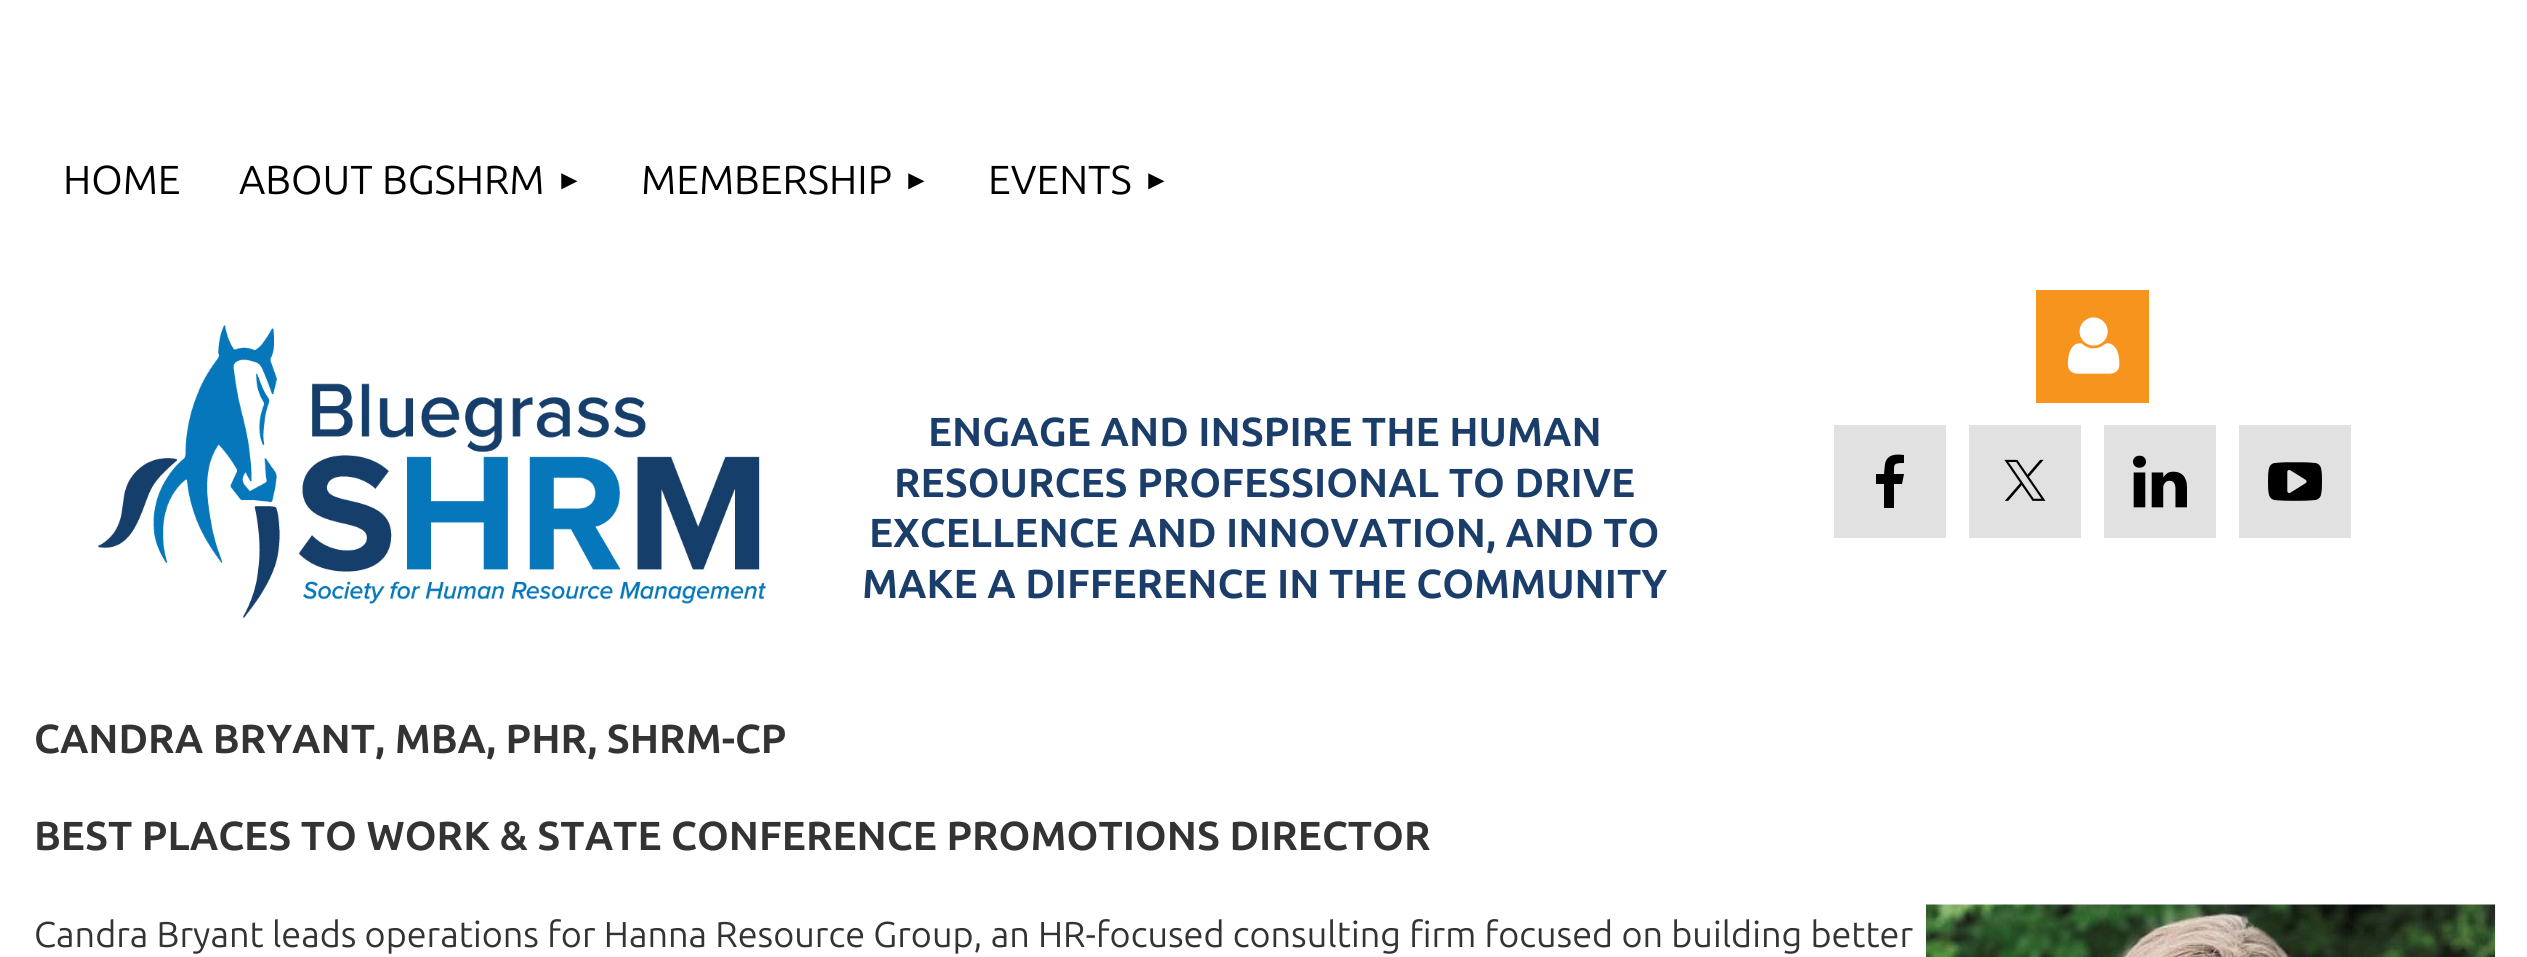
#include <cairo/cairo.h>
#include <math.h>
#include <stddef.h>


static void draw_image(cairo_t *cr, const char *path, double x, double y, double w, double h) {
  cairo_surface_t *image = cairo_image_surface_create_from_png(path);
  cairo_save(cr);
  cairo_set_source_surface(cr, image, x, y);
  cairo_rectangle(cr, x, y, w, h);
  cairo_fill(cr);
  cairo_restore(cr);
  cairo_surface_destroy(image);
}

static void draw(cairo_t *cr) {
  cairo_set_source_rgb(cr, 1, 1, 1);
  cairo_paint(cr);
  draw_image(cr, "images/1.png", 98, 325, 668, 294);
  cairo_set_source_rgb(cr, 247 / 255.0, 148 / 255.0, 29 / 255.0);
  cairo_rectangle(cr, 2036, 290, 113, 113);
  cairo_fill(cr);
  draw_image(cr, "images/2.png", 2067, 317, 53, 57);
  cairo_set_source_rgb(cr, 225 / 255.0, 225 / 255.0, 225 / 255.0);
  cairo_rectangle(cr, 1834, 425, 112, 113);
  cairo_fill(cr);
  cairo_set_source_rgb(cr, 0, 0, 0);
  cairo_new_path(cr);
  cairo_move_to(cr, 1904, 463);
  cairo_curve_to(cr, 1893, 463, 1894, 464, 1894, 474);
  cairo_line_to(cr, 1904, 474);
  cairo_line_to(cr, 1902, 484);
  cairo_line_to(cr, 1894, 484);
  cairo_line_to(cr, 1894, 508);
  cairo_line_to(cr, 1884, 508);
  cairo_line_to(cr, 1884, 484);
  cairo_line_to(cr, 1876, 484);
  cairo_line_to(cr, 1876, 474);
  cairo_line_to(cr, 1884, 474);
  cairo_line_to(cr, 1885, 464);
  cairo_curve_to(cr, 1887, 454, 1896, 454, 1904, 455);
  cairo_close_path(cr);
  cairo_fill(cr);
  cairo_set_source_rgb(cr, 225 / 255.0, 225 / 255.0, 225 / 255.0);
  cairo_rectangle(cr, 1969, 425, 112, 113);
  cairo_fill(cr);
  draw_image(cr, "images/3.png", 2004, 459, 42, 42);
  cairo_rectangle(cr, 2104, 425, 112, 113);
  cairo_fill(cr);
  draw_image(cr, "images/4.png", 2133, 455, 54, 53);
  cairo_rectangle(cr, 2239, 425, 112, 113);
  cairo_fill(cr);
  draw_image(cr, "images/5.png", 2268, 462, 54, 39);
  draw_image(cr, "images/6.png", 1926, 904, 570, 53);
  cairo_select_font_face(cr, "Ubuntu", CAIRO_FONT_SLANT_NORMAL, CAIRO_FONT_WEIGHT_NORMAL);
  cairo_set_font_size(cr, 40.5);
  cairo_set_source_rgb(cr, 0, 0, 0);
  cairo_move_to(cr, 63, 194);
  cairo_show_text(cr, "HOME");
  cairo_move_to(cr, 239, 194);
  cairo_show_text(cr, "ABOUT BGSHRM");
  cairo_select_font_face(cr, "Liberation Sans", CAIRO_FONT_SLANT_NORMAL, CAIRO_FONT_WEIGHT_NORMAL);
  cairo_set_font_size(cr, 27);
  cairo_move_to(cr, 556, 189);
  cairo_show_text(cr, "►");
  cairo_select_font_face(cr, "Ubuntu", CAIRO_FONT_SLANT_NORMAL, CAIRO_FONT_WEIGHT_NORMAL);
  cairo_set_font_size(cr, 40.5);
  cairo_move_to(cr, 641, 194);
  cairo_show_text(cr, "MEMBERSHIP");
  cairo_select_font_face(cr, "Liberation Sans", CAIRO_FONT_SLANT_NORMAL, CAIRO_FONT_WEIGHT_NORMAL);
  cairo_set_font_size(cr, 27);
  cairo_move_to(cr, 903, 189);
  cairo_show_text(cr, "►");
  cairo_select_font_face(cr, "Ubuntu", CAIRO_FONT_SLANT_NORMAL, CAIRO_FONT_WEIGHT_NORMAL);
  cairo_set_font_size(cr, 40.5);
  cairo_move_to(cr, 988, 194);
  cairo_show_text(cr, "EVENTS");
  cairo_select_font_face(cr, "Liberation Sans", CAIRO_FONT_SLANT_NORMAL, CAIRO_FONT_WEIGHT_NORMAL);
  cairo_set_font_size(cr, 27);
  cairo_move_to(cr, 1143, 189);
  cairo_show_text(cr, "►");
  cairo_select_font_face(cr, "Ubuntu", CAIRO_FONT_SLANT_NORMAL, CAIRO_FONT_WEIGHT_BOLD);
  cairo_set_font_size(cr, 40.5);
  cairo_set_source_rgb(cr, 26 / 255.0, 61 / 255.0, 106 / 255.0);
  cairo_move_to(cr, 928, 446);
  cairo_show_text(cr, "ENGAGE AND INSPIRE THE HUMAN");
  cairo_move_to(cr, 894, 497);
  cairo_show_text(cr, "RESOURCES PROFESSIONAL TO DRIVE");
  cairo_move_to(cr, 869, 547);
  cairo_show_text(cr, "EXCELLENCE AND INNOVATION, AND TO");
  cairo_move_to(cr, 862, 598);
  cairo_show_text(cr, "MAKE A DIFFERENCE IN THE COMMUNITY");
  cairo_set_source_rgb(cr, 51 / 255.0, 51 / 255.0, 51 / 255.0);
  cairo_move_to(cr, 34, 753);
  cairo_show_text(cr, "CANDRA BRYANT, MBA, PHR, SHRM-CP");
  cairo_move_to(cr, 34, 850);
  cairo_show_text(cr, "BEST PLACES TO WORK & STATE CONFERENCE PROMOTIONS DIRECTOR");
  cairo_select_font_face(cr, "Ubuntu", CAIRO_FONT_SLANT_NORMAL, CAIRO_FONT_WEIGHT_NORMAL);
  cairo_set_font_size(cr, 36);
  cairo_move_to(cr, 34, 947);
  cairo_show_text(cr, "Candra Bryant leads operations for Hanna Resource Group, an HR-focused consulting firm focused on building better");
}

int main(void) {
  cairo_surface_t *surface = cairo_image_surface_create(CAIRO_FORMAT_RGB24, 2527, 957);
  cairo_t *cr = cairo_create(surface);
  cairo_font_options_t *options = cairo_font_options_create();
  cairo_font_options_set_hint_metrics(options, CAIRO_HINT_METRICS_OFF);
  cairo_font_options_set_hint_style(options, CAIRO_HINT_STYLE_NONE);
  cairo_set_font_options(cr, options);
  cairo_set_miter_limit(cr, 4);
  draw(cr);
  cairo_surface_write_to_png(surface, "out.png");
  cairo_font_options_destroy(options);
  cairo_destroy(cr);
  cairo_surface_destroy(surface);
  return 0;
}
